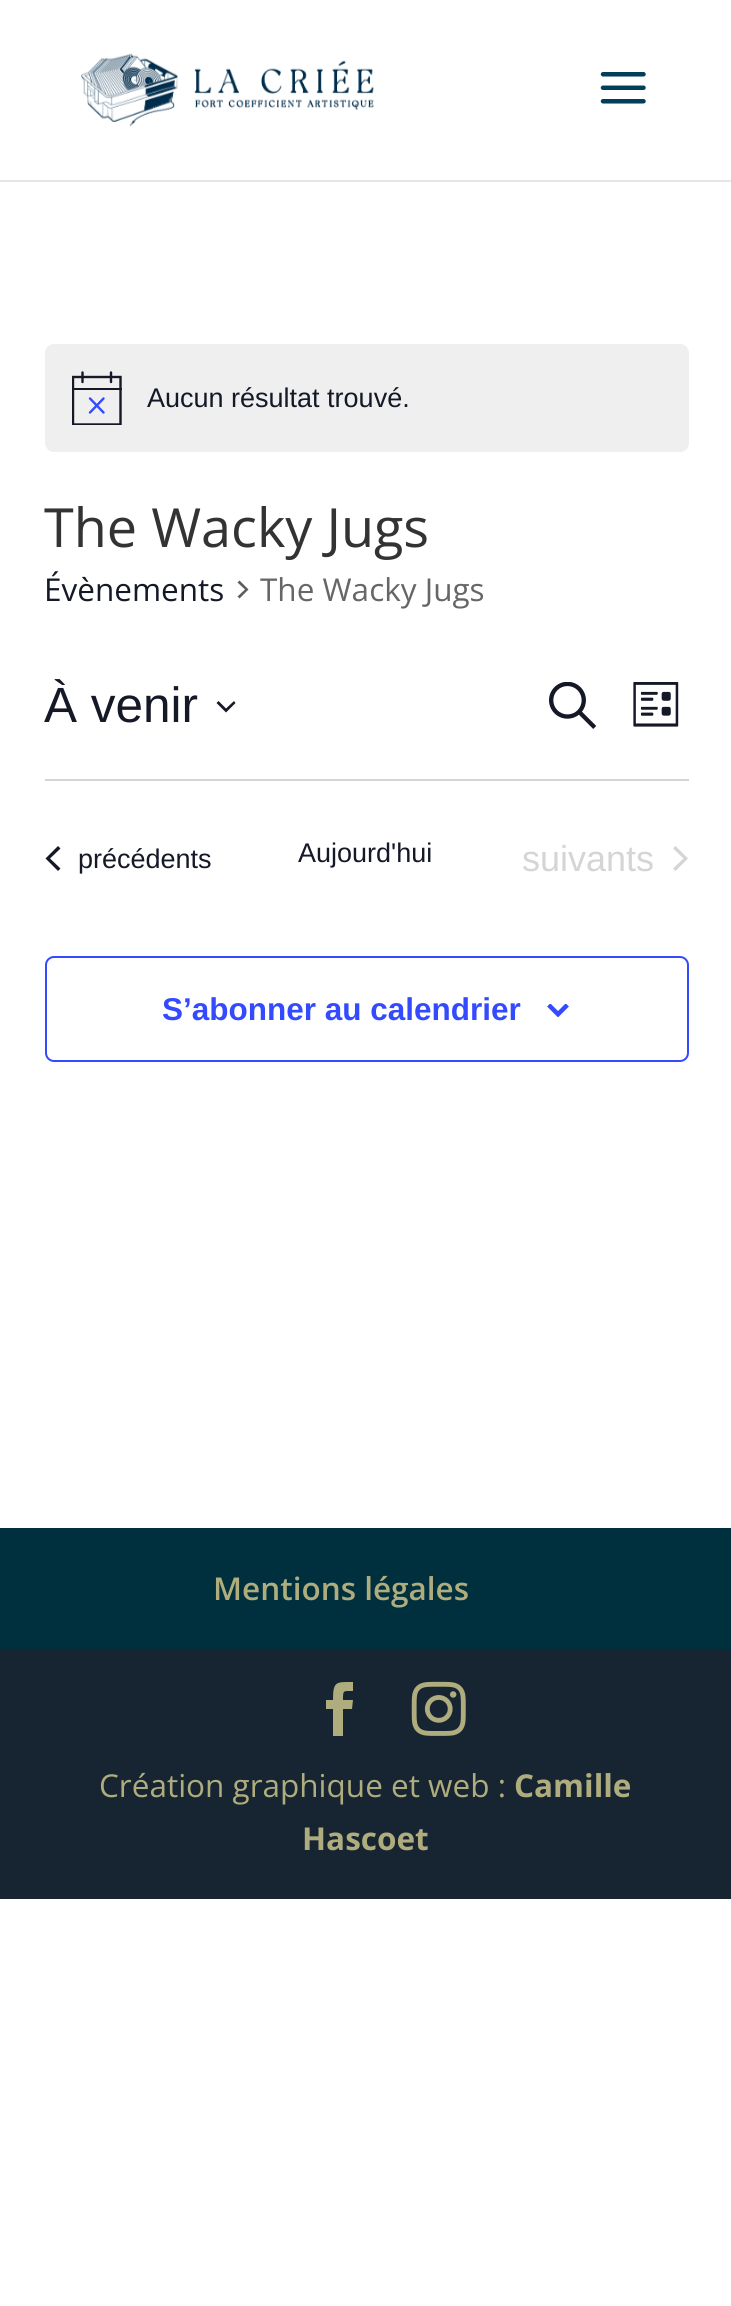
#include <cairo/cairo.h>
#include <math.h>
#include <stddef.h>


static void rounded_rect(cairo_t *cr, double x, double y, double w, double h, double r) {
  cairo_new_sub_path(cr);
  cairo_arc(cr, x + w - r, y + h - r, r, 0, M_PI / 2);
  cairo_arc(cr, x + r, y + h - r, r, M_PI / 2, M_PI);
  cairo_arc(cr, x + r, y + r, r, M_PI, 1.5 * M_PI);
  cairo_arc(cr, x + w - r, y + r, r, 1.5 * M_PI, 2 * M_PI);
  cairo_close_path(cr);
}

static void draw_image(cairo_t *cr, const char *path, double x, double y, double w, double h) {
  cairo_surface_t *image = cairo_image_surface_create_from_png(path);
  cairo_save(cr);
  cairo_set_source_surface(cr, image, x, y);
  cairo_rectangle(cr, x, y, w, h);
  cairo_fill(cr);
  cairo_restore(cr);
  cairo_surface_destroy(image);
}

static void draw(cairo_t *cr) {
  cairo_set_source_rgb(cr, 1, 1, 1);
  cairo_paint(cr);
  cairo_set_source_rgb(cr, 230 / 255.0, 230 / 255.0, 230 / 255.0);
  cairo_rectangle(cr, 0, 180, 731, 2);
  cairo_fill(cr);
  draw_image(cr, "images/1.png", 81, 53, 293, 74);
  draw_image(cr, "images/2.png", 600, 72, 46, 32);
  cairo_set_source_rgb(cr, 239 / 255.0, 239 / 255.0, 240 / 255.0);
  rounded_rect(cr, 45, 344, 644, 108, 9);
  cairo_fill(cr);
  cairo_save(cr);
  cairo_rectangle(cr, 72, 371, 50, 54);
  cairo_clip(cr);
  cairo_new_path(cr);
  cairo_move_to(cr, 73, 377);
  cairo_line_to(cr, 120.5, 377);
  cairo_line_to(cr, 120.5, 424.5);
  cairo_line_to(cr, 73, 424.5);
  cairo_close_path(cr);
  cairo_set_source_rgb(cr, 20 / 255.0, 24 / 255.0, 39 / 255.0);
  cairo_set_line_width(cr, 2.4);
  cairo_stroke(cr);
  cairo_restore(cr);
  cairo_new_path(cr);
  cairo_move_to(cr, 90, 398.5);
  cairo_line_to(cr, 103.5, 412.5);
  cairo_move_to(cr, 103.5, 398.5);
  cairo_line_to(cr, 90, 412.5);
  cairo_set_source_rgb(cr, 51 / 255.0, 74 / 255.0, 1);
  cairo_set_line_width(cr, 2.4);
  cairo_set_line_cap(cr, CAIRO_LINE_CAP_ROUND);
  cairo_stroke(cr);
  cairo_new_path(cr);
  cairo_move_to(cr, 82.5, 372.5);
  cairo_line_to(cr, 82.5, 382);
  cairo_move_to(cr, 111, 372.5);
  cairo_line_to(cr, 111, 382);
  cairo_set_source_rgb(cr, 20 / 255.0, 24 / 255.0, 39 / 255.0);
  cairo_stroke(cr);
  cairo_rectangle(cr, 72, 388, 50, 2);
  cairo_fill(cr);
  cairo_set_source_rgb(cr, 93 / 255.0, 93 / 255.0, 93 / 255.0);
  cairo_new_path(cr);
  cairo_move_to(cr, 237.5, 582.5);
  cairo_line_to(cr, 239.5, 580.5);
  cairo_line_to(cr, 248.5, 589.5);
  cairo_line_to(cr, 239.5, 598.5);
  cairo_line_to(cr, 237.5, 596.5);
  cairo_line_to(cr, 245, 589.5);
  cairo_close_path(cr);
  cairo_fill(cr);
  cairo_set_source_rgb(cr, 20 / 255.0, 24 / 255.0, 39 / 255.0);
  cairo_set_fill_rule(cr, CAIRO_FILL_RULE_EVEN_ODD);
  cairo_new_path(cr);
  cairo_move_to(cr, 218.5, 701);
  cairo_line_to(cr, 226, 708.5);
  cairo_line_to(cr, 234, 701);
  cairo_line_to(cr, 235.5, 703);
  cairo_line_to(cr, 226, 712.5);
  cairo_line_to(cr, 216.5, 703);
  cairo_close_path(cr);
  cairo_fill(cr);
  draw_image(cr, "images/3.png", 549, 682, 47, 47);
  draw_image(cr, "images/4.png", 633, 682, 46, 45);
  cairo_set_source_rgb(cr, 213 / 255.0, 213 / 255.0, 213 / 255.0);
  cairo_rectangle(cr, 45, 779, 644, 2);
  cairo_fill(cr);
  cairo_set_source_rgb(cr, 20 / 255.0, 24 / 255.0, 39 / 255.0);
  cairo_set_fill_rule(cr, CAIRO_FILL_RULE_WINDING);
  cairo_new_path(cr);
  cairo_move_to(cr, 60.5, 868.5);
  cairo_line_to(cr, 58, 871);
  cairo_line_to(cr, 45.5, 858.5);
  cairo_line_to(cr, 58, 846);
  cairo_line_to(cr, 60.5, 848.5);
  cairo_line_to(cr, 50, 858.5);
  cairo_close_path(cr);
  cairo_fill(cr);
  cairo_set_source_rgb(cr, 213 / 255.0, 213 / 255.0, 213 / 255.0);
  cairo_new_path(cr);
  cairo_move_to(cr, 673, 848.5);
  cairo_line_to(cr, 675.5, 846);
  cairo_line_to(cr, 688, 858.5);
  cairo_line_to(cr, 675.5, 871);
  cairo_line_to(cr, 673, 868.5);
  cairo_line_to(cr, 683.5, 858.5);
  cairo_close_path(cr);
  cairo_fill(cr);
  rounded_rect(cr, 46, 957, 642, 104, 8);
  cairo_set_source_rgb(cr, 51 / 255.0, 74 / 255.0, 1);
  cairo_set_line_width(cr, 2);
  cairo_set_line_cap(cr, CAIRO_LINE_CAP_BUTT);
  cairo_stroke(cr);
  draw_image(cr, "images/5.png", 547, 1004, 22, 13);
  cairo_set_source_rgb(cr, 0, 48 / 255.0, 61 / 255.0);
  cairo_rectangle(cr, 0, 1528, 731, 121);
  cairo_fill(cr);
  cairo_set_source_rgb(cr, 23 / 255.0, 37 / 255.0, 50 / 255.0);
  cairo_rectangle(cr, 0, 1649, 731, 250);
  cairo_fill(cr);
  cairo_set_source_rgb(cr, 175 / 255.0, 172 / 255.0, 126 / 255.0);
  cairo_new_path(cr);
  cairo_move_to(cr, 333, 1736);
  cairo_line_to(cr, 343, 1736);
  cairo_line_to(cr, 343, 1709);
  cairo_line_to(cr, 352, 1709);
  cairo_line_to(cr, 353, 1700);
  cairo_line_to(cr, 343, 1700);
  cairo_curve_to(cr, 343, 1690, 343, 1691, 353, 1691);
  cairo_line_to(cr, 353, 1682);
  cairo_curve_to(cr, 336, 1682, 333, 1681, 333, 1700);
  cairo_line_to(cr, 326, 1700);
  cairo_line_to(cr, 326, 1709);
  cairo_line_to(cr, 333, 1709);
  cairo_close_path(cr);
  cairo_fill(cr);
  draw_image(cr, "images/6.png", 411, 1681, 55, 55);
  cairo_select_font_face(cr, "Liberation Sans", CAIRO_FONT_SLANT_NORMAL, CAIRO_FONT_WEIGHT_NORMAL);
  cairo_set_font_size(cr, 27);
  cairo_set_source_rgb(cr, 20 / 255.0, 24 / 255.0, 39 / 255.0);
  cairo_move_to(cr, 147, 407);
  cairo_show_text(cr, "Aucun résultat trouvé.");
  cairo_select_font_face(cr, "Open Sans", CAIRO_FONT_SLANT_NORMAL, CAIRO_FONT_WEIGHT_NORMAL);
  cairo_set_font_size(cr, 54);
  cairo_set_source_rgb(cr, 51 / 255.0, 51 / 255.0, 51 / 255.0);
  cairo_move_to(cr, 44, 547);
  cairo_show_text(cr, "The Wacky Jugs");
  cairo_set_font_size(cr, 31.5);
  cairo_set_source_rgb(cr, 20 / 255.0, 24 / 255.0, 39 / 255.0);
  cairo_move_to(cr, 44, 601);
  cairo_show_text(cr, "Évènements");
  cairo_set_source_rgb(cr, 102 / 255.0, 102 / 255.0, 102 / 255.0);
  cairo_move_to(cr, 260, 601);
  cairo_show_text(cr, "The Wacky Jugs");
  cairo_select_font_face(cr, "Liberation Sans", CAIRO_FONT_SLANT_NORMAL, CAIRO_FONT_WEIGHT_NORMAL);
  cairo_set_font_size(cr, 49.5);
  cairo_set_source_rgb(cr, 20 / 255.0, 24 / 255.0, 39 / 255.0);
  cairo_move_to(cr, 44, 722);
  cairo_show_text(cr, "À venir");
  cairo_set_font_size(cr, 27);
  cairo_move_to(cr, 78, 868);
  cairo_show_text(cr, "précédents");
  cairo_move_to(cr, 298, 862);
  cairo_show_text(cr, "Aujourd'hui");
  cairo_set_font_size(cr, 36);
  cairo_set_source_rgb(cr, 213 / 255.0, 213 / 255.0, 213 / 255.0);
  cairo_move_to(cr, 522, 871);
  cairo_show_text(cr, "suivants");
  cairo_select_font_face(cr, "Liberation Sans", CAIRO_FONT_SLANT_NORMAL, CAIRO_FONT_WEIGHT_BOLD);
  cairo_set_font_size(cr, 31.5);
  cairo_set_source_rgb(cr, 51 / 255.0, 74 / 255.0, 1);
  cairo_move_to(cr, 162, 1020);
  cairo_show_text(cr, "S’abonner au calendrier");
  cairo_select_font_face(cr, "Open Sans SemiBold", CAIRO_FONT_SLANT_NORMAL, CAIRO_FONT_WEIGHT_NORMAL);
  cairo_set_source_rgb(cr, 175 / 255.0, 172 / 255.0, 126 / 255.0);
  cairo_move_to(cr, 213, 1600);
  cairo_show_text(cr, "Mentions légales");
  cairo_select_font_face(cr, "Open Sans", CAIRO_FONT_SLANT_NORMAL, CAIRO_FONT_WEIGHT_NORMAL);
  cairo_move_to(cr, 99, 1797);
  cairo_show_text(cr, "Création graphique et web :");
  cairo_select_font_face(cr, "Open Sans", CAIRO_FONT_SLANT_NORMAL, CAIRO_FONT_WEIGHT_BOLD);
  cairo_move_to(cr, 514, 1797);
  cairo_show_text(cr, "Camille");
  cairo_move_to(cr, 302, 1850);
  cairo_show_text(cr, "Hascoet");
}

int main(void) {
  cairo_surface_t *surface = cairo_image_surface_create(CAIRO_FORMAT_RGB24, 731, 2306);
  cairo_t *cr = cairo_create(surface);
  cairo_font_options_t *options = cairo_font_options_create();
  cairo_font_options_set_hint_metrics(options, CAIRO_HINT_METRICS_OFF);
  cairo_font_options_set_hint_style(options, CAIRO_HINT_STYLE_NONE);
  cairo_set_font_options(cr, options);
  cairo_set_miter_limit(cr, 4);
  draw(cr);
  cairo_surface_write_to_png(surface, "out.png");
  cairo_font_options_destroy(options);
  cairo_destroy(cr);
  cairo_surface_destroy(surface);
  return 0;
}
